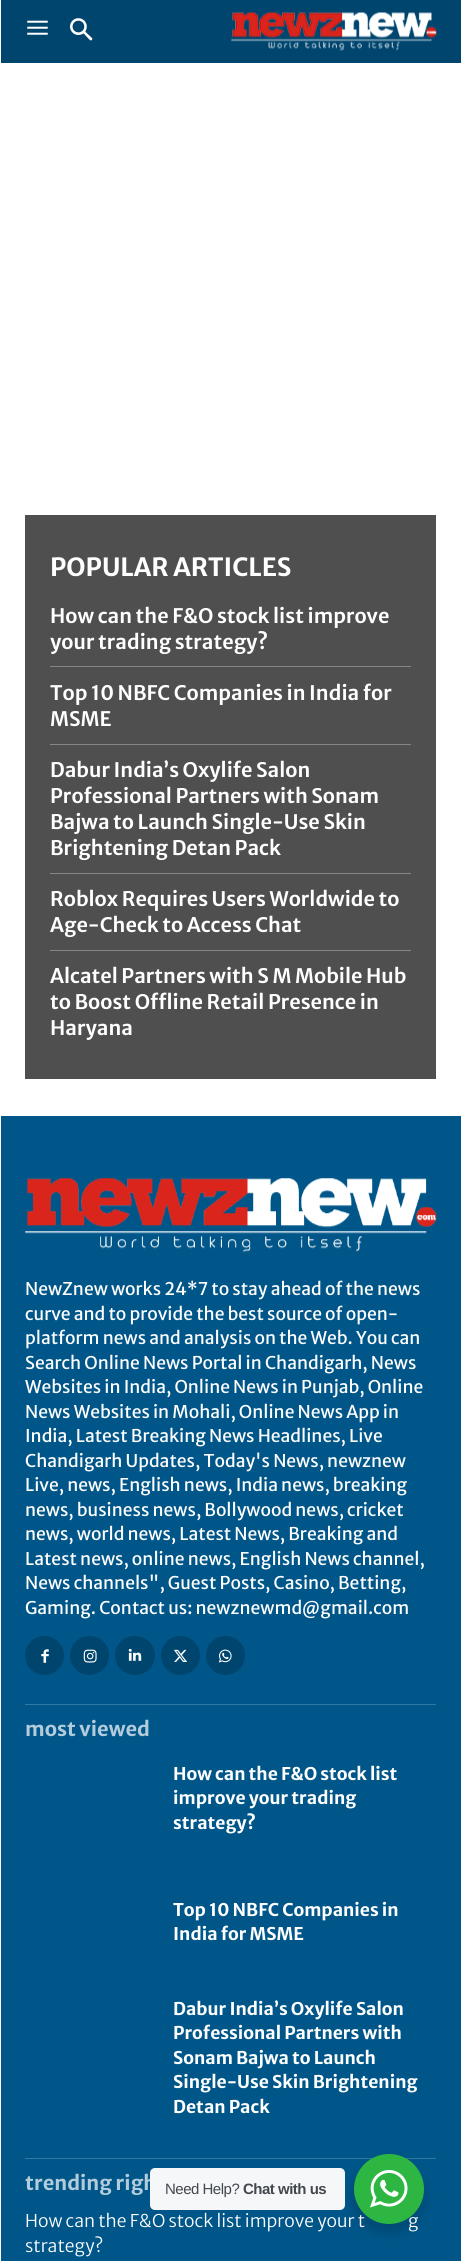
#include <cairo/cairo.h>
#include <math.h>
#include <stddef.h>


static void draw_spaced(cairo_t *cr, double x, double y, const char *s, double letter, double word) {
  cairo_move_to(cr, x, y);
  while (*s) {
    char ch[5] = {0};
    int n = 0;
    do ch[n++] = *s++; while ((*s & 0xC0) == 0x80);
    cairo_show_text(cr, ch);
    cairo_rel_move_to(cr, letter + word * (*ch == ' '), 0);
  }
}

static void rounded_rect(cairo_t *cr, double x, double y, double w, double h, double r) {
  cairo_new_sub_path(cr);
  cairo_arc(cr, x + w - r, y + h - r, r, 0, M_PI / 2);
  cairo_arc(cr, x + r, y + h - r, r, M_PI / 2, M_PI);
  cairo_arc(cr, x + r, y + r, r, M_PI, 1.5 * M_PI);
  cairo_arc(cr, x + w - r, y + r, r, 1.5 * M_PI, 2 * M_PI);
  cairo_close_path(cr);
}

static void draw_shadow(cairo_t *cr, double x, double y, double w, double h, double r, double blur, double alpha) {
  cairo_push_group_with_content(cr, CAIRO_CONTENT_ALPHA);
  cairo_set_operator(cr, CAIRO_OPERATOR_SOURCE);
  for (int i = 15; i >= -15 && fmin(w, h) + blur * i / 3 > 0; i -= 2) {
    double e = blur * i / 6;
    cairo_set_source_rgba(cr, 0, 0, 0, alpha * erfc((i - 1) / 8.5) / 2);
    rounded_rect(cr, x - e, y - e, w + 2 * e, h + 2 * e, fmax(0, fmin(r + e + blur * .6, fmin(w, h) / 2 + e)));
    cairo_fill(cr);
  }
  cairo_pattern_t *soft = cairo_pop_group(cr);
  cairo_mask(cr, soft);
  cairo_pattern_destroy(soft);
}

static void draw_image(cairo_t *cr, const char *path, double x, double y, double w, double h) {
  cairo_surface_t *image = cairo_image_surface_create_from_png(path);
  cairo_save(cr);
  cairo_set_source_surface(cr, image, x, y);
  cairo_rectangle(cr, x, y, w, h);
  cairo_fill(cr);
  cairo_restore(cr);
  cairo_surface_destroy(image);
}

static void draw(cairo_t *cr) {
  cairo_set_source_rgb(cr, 1, 1, 1);
  cairo_paint(cr);
  cairo_set_source_rgb(cr, 0, 69 / 255.0, 110 / 255.0);
  cairo_rectangle(cr, 1, 0, 460, 63);
  cairo_fill(cr);
  draw_image(cr, "images/1.png", 27, 20, 21, 15);
  draw_image(cr, "images/2.png", 70, 18, 23, 23);
  draw_image(cr, "images/3.png", 231, 12, 206, 39);
  cairo_set_source_rgb(cr, 79 / 255.0, 79 / 255.0, 79 / 255.0);
  cairo_rectangle(cr, 25, 515, 411, 564);
  cairo_fill(cr);
  cairo_set_source_rgb(cr, 134 / 255.0, 134 / 255.0, 134 / 255.0);
  cairo_rectangle(cr, 50, 666, 361, 1);
  cairo_fill(cr);
  cairo_rectangle(cr, 50, 744, 361, 1);
  cairo_fill(cr);
  cairo_rectangle(cr, 50, 873, 361, 1);
  cairo_fill(cr);
  cairo_rectangle(cr, 50, 950, 361, 1);
  cairo_fill(cr);
  cairo_set_source_rgb(cr, 0, 86 / 255.0, 137 / 255.0);
  cairo_rectangle(cr, 1, 1116, 460, 1145);
  cairo_fill(cr);
  draw_image(cr, "images/4.png", 25, 1178, 412, 75);
  cairo_set_source_rgb(cr, 0, 69 / 255.0, 110 / 255.0);
  cairo_arc(cr, 44.5, 1655.5, 19.5, 0, 2 * M_PI);
  cairo_fill(cr);
  draw_image(cr, "images/5.png", 41, 1649, 8, 14);
  cairo_arc(cr, 89.5, 1655.5, 19.5, 0, 2 * M_PI);
  cairo_fill(cr);
  draw_image(cr, "images/6.png", 83, 1649, 14, 14);
  rounded_rect(cr, 115, 1636, 40, 39, 19.5);
  cairo_fill(cr);
  draw_image(cr, "images/7.png", 128, 1648, 14, 13);
  cairo_arc(cr, 180.5, 1655.5, 19.5, 0, 2 * M_PI);
  cairo_fill(cr);
  draw_image(cr, "images/8.png", 173, 1649, 15, 13);
  cairo_arc(cr, 225.5, 1655.5, 19.5, 0, 2 * M_PI);
  cairo_fill(cr);
  draw_image(cr, "images/9.png", 218, 1649, 14, 14);
  cairo_set_source_rgb(cr, 51 / 255.0, 120 / 255.0, 161 / 255.0);
  cairo_rectangle(cr, 25, 1704, 411, 1);
  cairo_fill(cr);
  cairo_rectangle(cr, 25, 2158, 411, 1);
  cairo_fill(cr);
  cairo_set_source_rgb(cr, 0, 0, 0);
  draw_shadow(cr, 351, 2159, 75, 75, 37.5, 5, 0.14);
  cairo_select_font_face(cr, "Merriweather Sans", CAIRO_FONT_SLANT_NORMAL, CAIRO_FONT_WEIGHT_BOLD);
  cairo_set_font_size(cr, 25);
  cairo_set_source_rgb(cr, 1, 1, 1);
  cairo_move_to(cr, 50, 576);
  cairo_show_text(cr, "POPULAR ARTICLES");
  cairo_select_font_face(cr, "Merriweather Sans SemiBold", CAIRO_FONT_SLANT_NORMAL, CAIRO_FONT_WEIGHT_NORMAL);
  cairo_set_font_size(cr, 20);
  cairo_move_to(cr, 50, 623);
  cairo_show_text(cr, "How can the F&O stock list improve");
  cairo_move_to(cr, 50, 649);
  cairo_show_text(cr, "your trading strategy?");
  cairo_move_to(cr, 50, 700);
  cairo_show_text(cr, "Top 10 NBFC Companies in India for");
  cairo_move_to(cr, 50, 726);
  cairo_show_text(cr, "MSME");
  cairo_move_to(cr, 50, 777);
  cairo_show_text(cr, "Dabur India’s Oxylife Salon");
  cairo_move_to(cr, 50, 803);
  cairo_show_text(cr, "Professional Partners with Sonam");
  cairo_move_to(cr, 50, 829);
  cairo_show_text(cr, "Bajwa to Launch Single-Use Skin");
  cairo_move_to(cr, 50, 855);
  cairo_show_text(cr, "Brightening Detan Pack");
  cairo_move_to(cr, 50, 906);
  cairo_show_text(cr, "Roblox Requires Users Worldwide to");
  cairo_move_to(cr, 50, 932);
  cairo_show_text(cr, "Age-Check to Access Chat");
  cairo_move_to(cr, 50, 983);
  cairo_show_text(cr, "Alcatel Partners with S M Mobile Hub");
  cairo_move_to(cr, 50, 1009);
  cairo_show_text(cr, "to Boost Offline Retail Presence in");
  cairo_move_to(cr, 50, 1035);
  cairo_show_text(cr, "Haryana");
  cairo_select_font_face(cr, "Merriweather Sans", CAIRO_FONT_SLANT_NORMAL, CAIRO_FONT_WEIGHT_NORMAL);
  cairo_set_font_size(cr, 17.5);
  cairo_move_to(cr, 25, 1295);
  cairo_show_text(cr, "NewZnew works 24*7 to stay ahead of the news");
  cairo_move_to(cr, 25, 1320);
  cairo_show_text(cr, "curve and to provide the best source of open-");
  cairo_move_to(cr, 25, 1344);
  cairo_show_text(cr, "platform news and analysis on the Web. You can");
  cairo_move_to(cr, 25, 1369);
  cairo_show_text(cr, "Search Online News Portal in Chandigarh, News");
  cairo_move_to(cr, 25, 1393);
  cairo_show_text(cr, "Websites in India, Online News in Punjab, Online");
  cairo_move_to(cr, 25, 1418);
  cairo_show_text(cr, "News Websites in Mohali, Online News App in");
  cairo_move_to(cr, 25, 1442);
  cairo_show_text(cr, "India, Latest Breaking News Headlines, Live");
  cairo_move_to(cr, 25, 1467);
  cairo_show_text(cr, "Chandigarh Updates, Today's News, newznew");
  cairo_move_to(cr, 25, 1491);
  cairo_show_text(cr, "Live, news, English news, India news, breaking");
  cairo_move_to(cr, 25, 1516);
  cairo_show_text(cr, "news, business news, Bollywood news, cricket");
  cairo_move_to(cr, 25, 1540);
  cairo_show_text(cr, "news, world news, Latest News, Breaking and");
  cairo_move_to(cr, 25, 1565);
  cairo_show_text(cr, "Latest news, online news, English News channel,");
  cairo_move_to(cr, 25, 1589);
  cairo_show_text(cr, "News channels\", Guest Posts, Casino, Betting,");
  cairo_move_to(cr, 25, 1614);
  cairo_show_text(cr, "Gaming. Contact us: newznewmd@gmail.com");
  cairo_select_font_face(cr, "Merriweather Sans", CAIRO_FONT_SLANT_NORMAL, CAIRO_FONT_WEIGHT_BOLD);
  cairo_set_font_size(cr, 20);
  cairo_set_source_rgb(cr, 179 / 255.0, 204 / 255.0, 220 / 255.0);
  cairo_move_to(cr, 25, 1736);
  cairo_show_text(cr, "most viewed");
  cairo_set_font_size(cr, 17.5);
  cairo_set_source_rgb(cr, 1, 1, 1);
  cairo_move_to(cr, 173, 1780);
  cairo_show_text(cr, "How can the F&O stock list");
  cairo_move_to(cr, 173, 1804);
  cairo_show_text(cr, "improve your trading");
  cairo_move_to(cr, 173, 1829);
  cairo_show_text(cr, "strategy?");
  cairo_move_to(cr, 173, 1916);
  cairo_show_text(cr, "Top 10 NBFC Companies in");
  cairo_move_to(cr, 173, 1940);
  cairo_show_text(cr, "India for MSME");
  cairo_move_to(cr, 173, 2015);
  cairo_show_text(cr, "Dabur India’s Oxylife Salon");
  cairo_move_to(cr, 173, 2039);
  cairo_show_text(cr, "Professional Partners with");
  cairo_move_to(cr, 173, 2064);
  cairo_show_text(cr, "Sonam Bajwa to Launch");
  cairo_move_to(cr, 173, 2088);
  cairo_show_text(cr, "Single-Use Skin Brightening");
  cairo_move_to(cr, 173, 2113);
  cairo_show_text(cr, "Detan Pack");
  cairo_set_font_size(cr, 20);
  cairo_set_source_rgb(cr, 179 / 255.0, 204 / 255.0, 220 / 255.0);
  cairo_move_to(cr, 25, 2190);
  cairo_show_text(cr, "trending righ");
  cairo_select_font_face(cr, "Merriweather Sans Light", CAIRO_FONT_SLANT_NORMAL, CAIRO_FONT_WEIGHT_NORMAL);
  cairo_set_font_size(cr, 17.5);
  cairo_set_source_rgb(cr, 1, 1, 1);
  cairo_move_to(cr, 25, 2227);
  cairo_show_text(cr, "How can the F&O stock list improve your t");
  cairo_move_to(cr, 408, 2227);
  cairo_show_text(cr, "g");
  cairo_move_to(cr, 25, 2252);
  cairo_show_text(cr, "strategy?");
  cairo_set_source_rgb(cr, 245 / 255.0, 247 / 255.0, 249 / 255.0);
  rounded_rect(cr, 150, 2168, 195, 42, 5);
  cairo_fill(cr);
  cairo_select_font_face(cr, "Liberation Sans", CAIRO_FONT_SLANT_NORMAL, CAIRO_FONT_WEIGHT_NORMAL);
  cairo_set_font_size(cr, 15);
  cairo_set_source_rgb(cr, 67 / 255.0, 71 / 255.0, 78 / 255.0);
  draw_spaced(cr, 165, 2194, "Need Help?", -0.5, 0);
  cairo_select_font_face(cr, "Liberation Sans", CAIRO_FONT_SLANT_NORMAL, CAIRO_FONT_WEIGHT_BOLD);
  draw_spaced(cr, 243, 2194, "Chat with us", -0.5, 0);
  cairo_set_source_rgb(cr, 45 / 255.0, 183 / 255.0, 66 / 255.0);
  cairo_new_path(cr);
  cairo_arc(cr, 389, 2189, 35, 0, 2 * M_PI);
  cairo_fill(cr);
  draw_image(cr, "images/10.png", 370, 2170, 38, 38);
}

int main(void) {
  cairo_surface_t *surface = cairo_image_surface_create(CAIRO_FORMAT_RGB24, 461, 2261);
  cairo_t *cr = cairo_create(surface);
  cairo_font_options_t *options = cairo_font_options_create();
  cairo_font_options_set_hint_metrics(options, CAIRO_HINT_METRICS_OFF);
  cairo_font_options_set_hint_style(options, CAIRO_HINT_STYLE_NONE);
  cairo_set_font_options(cr, options);
  cairo_set_miter_limit(cr, 4);
  draw(cr);
  cairo_surface_write_to_png(surface, "out.png");
  cairo_font_options_destroy(options);
  cairo_destroy(cr);
  cairo_surface_destroy(surface);
  return 0;
}
